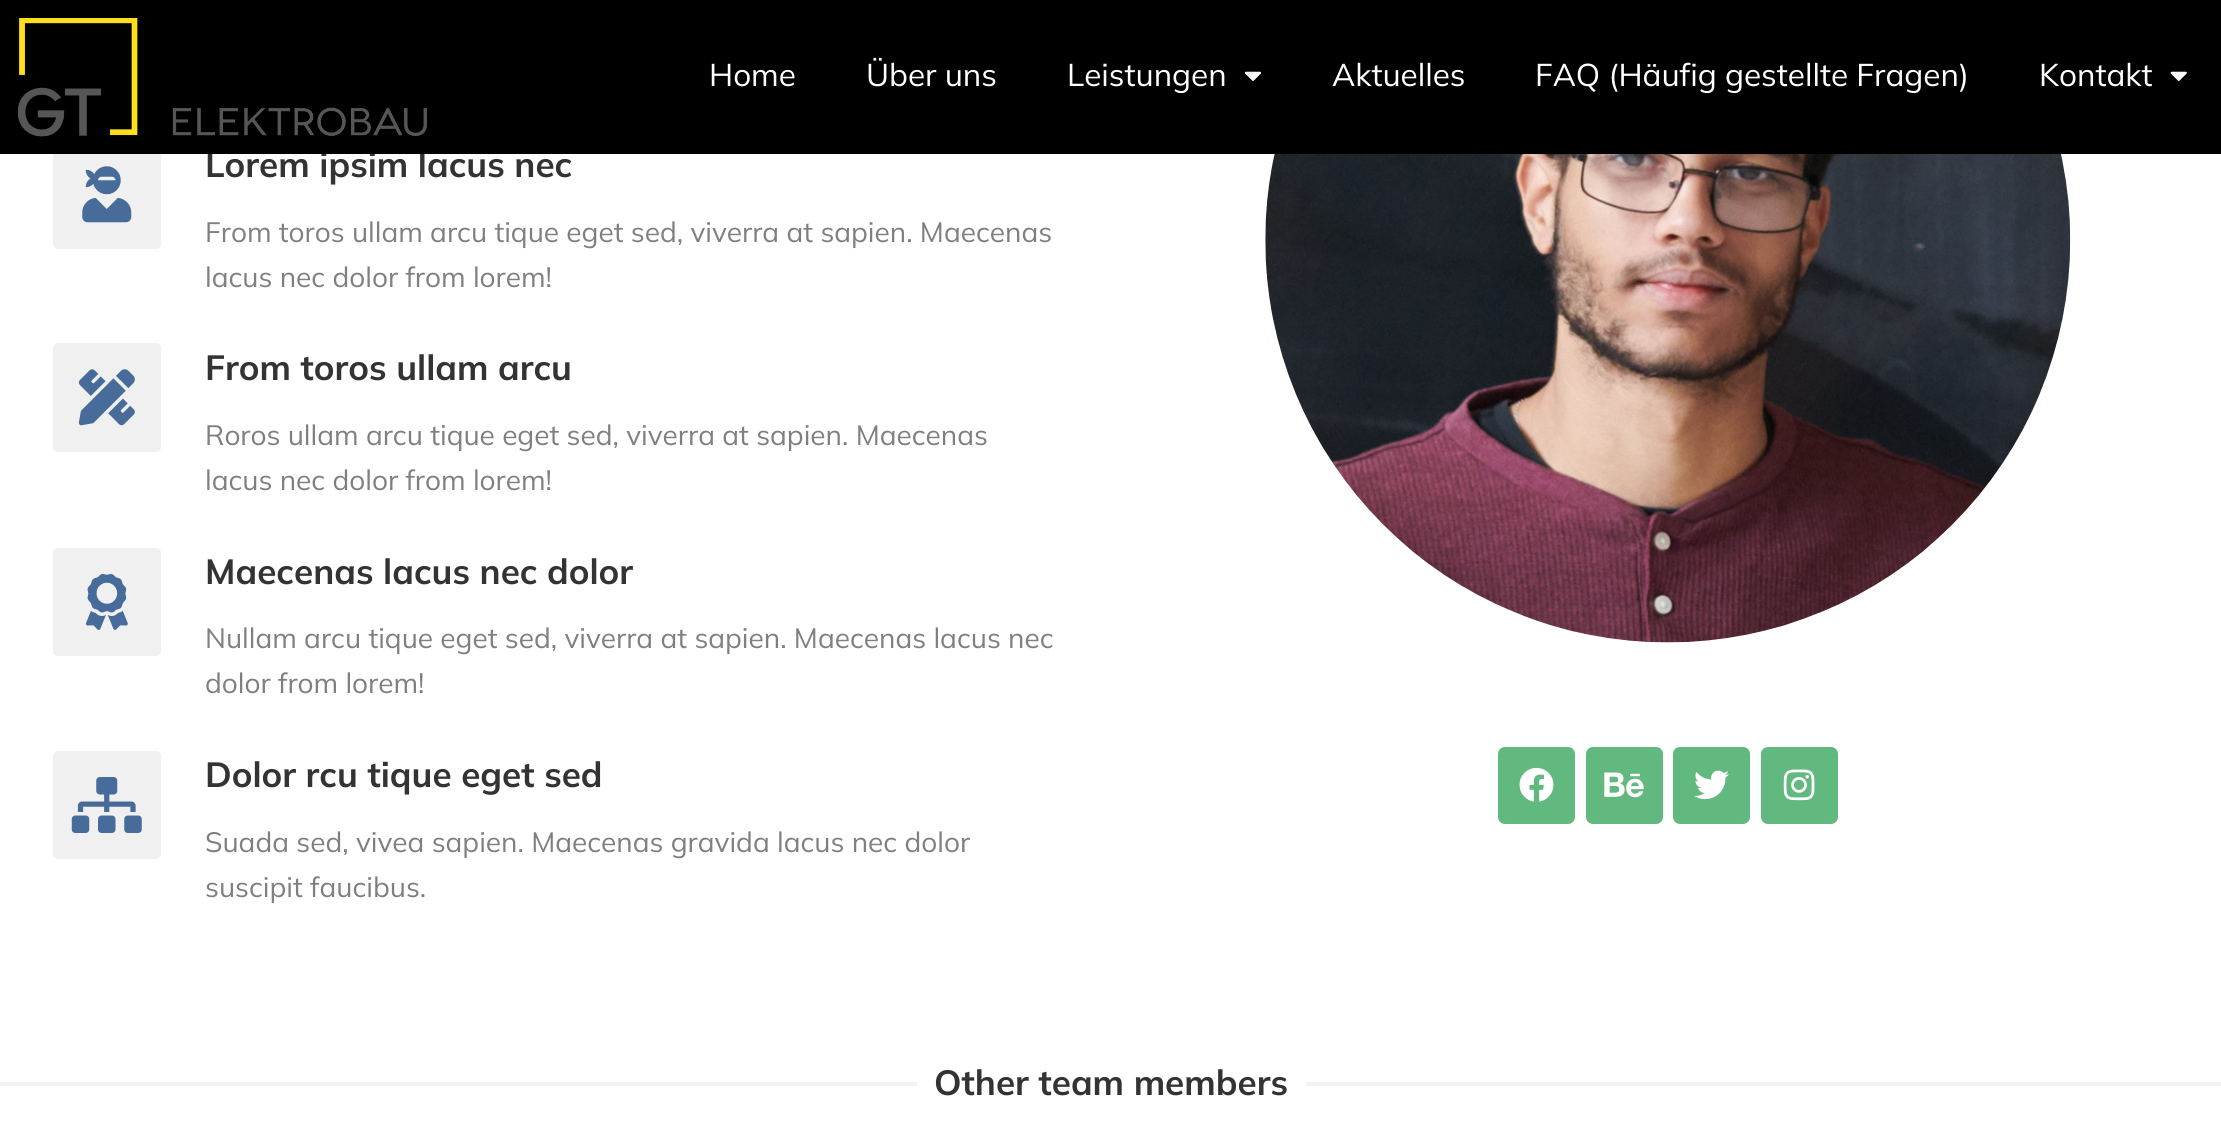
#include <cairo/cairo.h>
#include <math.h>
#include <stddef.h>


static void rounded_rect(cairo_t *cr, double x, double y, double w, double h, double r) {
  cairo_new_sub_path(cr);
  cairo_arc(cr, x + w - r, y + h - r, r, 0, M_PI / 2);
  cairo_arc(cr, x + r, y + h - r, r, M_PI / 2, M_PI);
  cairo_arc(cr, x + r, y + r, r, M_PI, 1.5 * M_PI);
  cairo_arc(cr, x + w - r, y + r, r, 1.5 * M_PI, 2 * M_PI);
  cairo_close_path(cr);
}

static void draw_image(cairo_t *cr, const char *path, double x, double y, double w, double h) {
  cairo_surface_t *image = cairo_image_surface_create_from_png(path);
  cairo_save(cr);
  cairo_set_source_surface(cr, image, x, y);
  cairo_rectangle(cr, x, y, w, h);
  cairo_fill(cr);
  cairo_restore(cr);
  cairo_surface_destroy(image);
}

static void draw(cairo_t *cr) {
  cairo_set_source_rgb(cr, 1, 1, 1);
  cairo_paint(cr);
  cairo_set_source_rgb(cr, 240 / 255.0, 240 / 255.0, 240 / 255.0);
  rounded_rect(cr, 53, 140, 108, 109, 5);
  cairo_fill(cr);
  draw_image(cr, "images/4.png", 82, 166, 50, 57);
  rounded_rect(cr, 53, 343, 108, 109, 5);
  cairo_fill(cr);
  draw_image(cr, "images/5.png", 78, 369, 57, 57);
  rounded_rect(cr, 53, 548, 108, 108, 5);
  cairo_fill(cr);
  draw_image(cr, "images/6.png", 85, 573, 43, 57);
  rounded_rect(cr, 53, 751, 108, 108, 5);
  cairo_fill(cr);
  draw_image(cr, "images/7.png", 71, 777, 71, 56);
  draw_image(cr, "images/8.png", 1265, 154, 806, 489);
  cairo_set_source_rgb(cr, 98 / 255.0, 185 / 255.0, 127 / 255.0);
  rounded_rect(cr, 1498, 747, 77, 77, 7);
  cairo_fill(cr);
  draw_image(cr, "images/9.png", 1519, 767, 35, 35);
  rounded_rect(cr, 1586, 747, 77, 77, 7);
  cairo_fill(cr);
  draw_image(cr, "images/10.png", 1604, 772, 40, 26);
  rounded_rect(cr, 1673, 747, 77, 77, 7);
  cairo_fill(cr);
  draw_image(cr, "images/11.png", 1694, 770, 35, 30);
  rounded_rect(cr, 1761, 747, 77, 77, 7);
  cairo_fill(cr);
  draw_image(cr, "images/12.png", 1783, 769, 32, 32);
  cairo_set_source_rgb(cr, 242 / 255.0, 242 / 255.0, 242 / 255.0);
  cairo_rectangle(cr, 0, 1082, 917, 4);
  cairo_fill(cr);
  cairo_rectangle(cr, 1306, 1082, 915, 4);
  cairo_fill(cr);
  cairo_select_font_face(cr, "Mulish", CAIRO_FONT_SLANT_NORMAL, CAIRO_FONT_WEIGHT_BOLD);
  cairo_set_font_size(cr, 35);
  cairo_set_source_rgb(cr, 51 / 255.0, 51 / 255.0, 51 / 255.0);
  cairo_move_to(cr, 205, 177);
  cairo_show_text(cr, "Lorem ipsim lacus nec");
  cairo_set_source_rgb(cr, 0, 0, 0);
  cairo_rectangle(cr, 0, 0, 2221, 154);
  cairo_fill(cr);
  draw_image(cr, "images/3.png", 2170, 71, 17, 10);
  cairo_select_font_face(cr, "Mulish", CAIRO_FONT_SLANT_NORMAL, CAIRO_FONT_WEIGHT_NORMAL);
  cairo_set_font_size(cr, 31.5);
  cairo_set_source_rgb(cr, 1, 1, 1);
  cairo_move_to(cr, 2039, 86);
  cairo_show_text(cr, "Kontakt");
  cairo_move_to(cr, 1535, 86);
  cairo_show_text(cr, "FAQ (Häufig gestellte Fragen)");
  cairo_move_to(cr, 1332, 86);
  cairo_show_text(cr, "Aktuelles");
  draw_image(cr, "images/2.png", 1244, 71, 18, 10);
  cairo_move_to(cr, 1067, 86);
  cairo_show_text(cr, "Leistungen");
  cairo_move_to(cr, 866, 86);
  cairo_show_text(cr, "Über uns");
  cairo_move_to(cr, 709, 86);
  cairo_show_text(cr, "Home");
  draw_image(cr, "images/1.png", 18, 18, 409, 119);
  cairo_set_font_size(cr, 28);
  cairo_set_source_rgb(cr, 127 / 255.0, 127 / 255.0, 127 / 255.0);
  cairo_move_to(cr, 205, 242);
  cairo_show_text(cr, "From toros ullam arcu tique eget sed, viverra at sapien. Maecenas");
  cairo_move_to(cr, 205, 287);
  cairo_show_text(cr, "lacus nec dolor from lorem!");
  cairo_select_font_face(cr, "Mulish", CAIRO_FONT_SLANT_NORMAL, CAIRO_FONT_WEIGHT_BOLD);
  cairo_set_font_size(cr, 35);
  cairo_set_source_rgb(cr, 51 / 255.0, 51 / 255.0, 51 / 255.0);
  cairo_move_to(cr, 205, 380);
  cairo_show_text(cr, "From toros ullam arcu");
  cairo_select_font_face(cr, "Mulish", CAIRO_FONT_SLANT_NORMAL, CAIRO_FONT_WEIGHT_NORMAL);
  cairo_set_font_size(cr, 28);
  cairo_set_source_rgb(cr, 127 / 255.0, 127 / 255.0, 127 / 255.0);
  cairo_move_to(cr, 205, 445);
  cairo_show_text(cr, "Roros ullam arcu tique eget sed, viverra at sapien. Maecenas");
  cairo_move_to(cr, 205, 490);
  cairo_show_text(cr, "lacus nec dolor from lorem!");
  cairo_select_font_face(cr, "Mulish", CAIRO_FONT_SLANT_NORMAL, CAIRO_FONT_WEIGHT_BOLD);
  cairo_set_font_size(cr, 35);
  cairo_set_source_rgb(cr, 51 / 255.0, 51 / 255.0, 51 / 255.0);
  cairo_move_to(cr, 205, 584);
  cairo_show_text(cr, "Maecenas lacus nec dolor");
  cairo_select_font_face(cr, "Mulish", CAIRO_FONT_SLANT_NORMAL, CAIRO_FONT_WEIGHT_NORMAL);
  cairo_set_font_size(cr, 28);
  cairo_set_source_rgb(cr, 127 / 255.0, 127 / 255.0, 127 / 255.0);
  cairo_move_to(cr, 205, 648);
  cairo_show_text(cr, "Nullam arcu tique eget sed, viverra at sapien. Maecenas lacus nec");
  cairo_move_to(cr, 205, 693);
  cairo_show_text(cr, "dolor from lorem!");
  cairo_select_font_face(cr, "Mulish", CAIRO_FONT_SLANT_NORMAL, CAIRO_FONT_WEIGHT_BOLD);
  cairo_set_font_size(cr, 35);
  cairo_set_source_rgb(cr, 51 / 255.0, 51 / 255.0, 51 / 255.0);
  cairo_move_to(cr, 205, 787);
  cairo_show_text(cr, "Dolor rcu tique eget sed");
  cairo_select_font_face(cr, "Mulish", CAIRO_FONT_SLANT_NORMAL, CAIRO_FONT_WEIGHT_NORMAL);
  cairo_set_font_size(cr, 28);
  cairo_set_source_rgb(cr, 127 / 255.0, 127 / 255.0, 127 / 255.0);
  cairo_move_to(cr, 205, 852);
  cairo_show_text(cr, "Suada sed, vivea sapien. Maecenas gravida lacus nec dolor");
  cairo_move_to(cr, 205, 897);
  cairo_show_text(cr, "suscipit faucibus.");
  cairo_select_font_face(cr, "Mulish", CAIRO_FONT_SLANT_NORMAL, CAIRO_FONT_WEIGHT_BOLD);
  cairo_set_font_size(cr, 35);
  cairo_set_source_rgb(cr, 51 / 255.0, 51 / 255.0, 51 / 255.0);
  cairo_move_to(cr, 934, 1095);
  cairo_show_text(cr, "Other team members");
}

int main(void) {
  cairo_surface_t *surface = cairo_image_surface_create(CAIRO_FORMAT_RGB24, 2221, 1132);
  cairo_t *cr = cairo_create(surface);
  cairo_font_options_t *options = cairo_font_options_create();
  cairo_font_options_set_hint_metrics(options, CAIRO_HINT_METRICS_OFF);
  cairo_font_options_set_hint_style(options, CAIRO_HINT_STYLE_NONE);
  cairo_set_font_options(cr, options);
  cairo_set_miter_limit(cr, 4);
  draw(cr);
  cairo_surface_write_to_png(surface, "out.png");
  cairo_font_options_destroy(options);
  cairo_destroy(cr);
  cairo_surface_destroy(surface);
  return 0;
}
